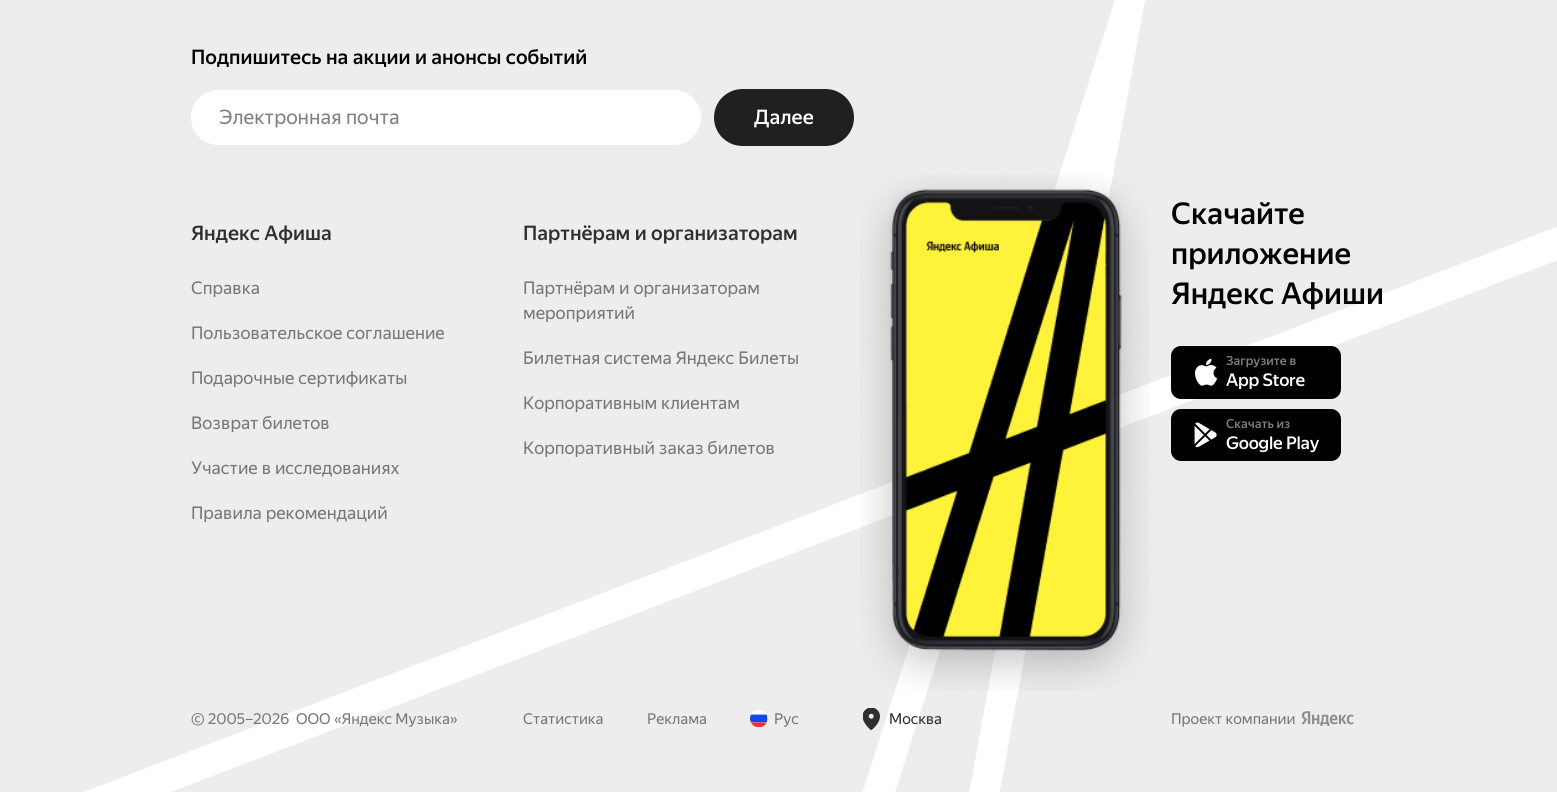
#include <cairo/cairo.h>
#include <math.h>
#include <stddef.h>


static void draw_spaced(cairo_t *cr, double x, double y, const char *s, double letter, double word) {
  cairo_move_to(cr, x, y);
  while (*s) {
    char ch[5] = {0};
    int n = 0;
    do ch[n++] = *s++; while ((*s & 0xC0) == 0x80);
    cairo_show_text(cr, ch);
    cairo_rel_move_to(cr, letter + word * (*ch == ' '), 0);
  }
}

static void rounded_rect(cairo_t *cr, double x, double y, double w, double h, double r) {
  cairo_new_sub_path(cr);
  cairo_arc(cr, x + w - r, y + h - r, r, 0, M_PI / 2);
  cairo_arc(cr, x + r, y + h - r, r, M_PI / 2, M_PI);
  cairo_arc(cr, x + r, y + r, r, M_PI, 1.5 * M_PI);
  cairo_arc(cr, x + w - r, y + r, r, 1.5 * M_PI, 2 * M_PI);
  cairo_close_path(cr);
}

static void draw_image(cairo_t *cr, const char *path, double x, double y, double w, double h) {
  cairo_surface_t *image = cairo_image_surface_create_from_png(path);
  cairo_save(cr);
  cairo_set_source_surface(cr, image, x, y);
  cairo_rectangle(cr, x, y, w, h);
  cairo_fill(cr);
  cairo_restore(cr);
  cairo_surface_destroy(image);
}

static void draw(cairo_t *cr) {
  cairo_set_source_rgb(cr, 237 / 255.0, 237 / 255.0, 237 / 255.0);
  cairo_paint(cr);
  cairo_set_source_rgb(cr, 1, 1, 1);
  rounded_rect(cr, 192.5, 91.5, 507, 52, 26);
  cairo_fill_preserve(cr);
  cairo_set_line_width(cr, 3);
  cairo_stroke(cr);
  cairo_set_source_rgb(cr, 32 / 255.0, 32 / 255.0, 32 / 255.0);
  rounded_rect(cr, 714, 89, 140, 57, 28.5);
  cairo_fill(cr);
  cairo_set_source_rgb(cr, 1, 1, 1);
  cairo_set_fill_rule(cr, CAIRO_FILL_RULE_EVEN_ODD);
  cairo_new_path(cr);
  cairo_move_to(cr, 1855, 146);
  cairo_line_to(cr, 38, 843);
  cairo_line_to(cr, 29, 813);
  cairo_line_to(cr, 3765, -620);
  cairo_line_to(cr, 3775, -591);
  cairo_close_path(cr);
  cairo_fill(cr);
  draw_image(cr, "images/1.png", 750, 710, 18, 17);
  cairo_new_path(cr);
  cairo_move_to(cr, 942, 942);
  cairo_line_to(cr, 1110, 22);
  cairo_line_to(cr, 1121, -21);
  cairo_line_to(cr, 1149, -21);
  cairo_line_to(cr, 971, 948);
  cairo_close_path(cr);
  cairo_fill(cr);
  cairo_new_path(cr);
  cairo_move_to(cr, 807, 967);
  cairo_line_to(cr, 1120, -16);
  cairo_line_to(cr, 1147, -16);
  cairo_line_to(cr, 1137, 31);
  cairo_line_to(cr, 837, 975);
  cairo_close_path(cr);
  cairo_fill(cr);
  draw_image(cr, "images/2.png", 863, 708, 17, 22);
  draw_image(cr, "images/3.png", 860, 175, 290, 516);
  cairo_set_source_rgb(cr, 0, 0, 0);
  rounded_rect(cr, 1171, 346, 170, 53, 10);
  cairo_fill(cr);
  draw_image(cr, "images/4.png", 1195, 358, 23, 28);
  rounded_rect(cr, 1171, 409, 170, 52, 10);
  cairo_fill(cr);
  draw_image(cr, "images/5.png", 1194, 422, 23, 26);
  draw_image(cr, "images/6.png", 1301, 711, 53, 15);
  cairo_select_font_face(cr, "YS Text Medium", CAIRO_FONT_SLANT_NORMAL, CAIRO_FONT_WEIGHT_NORMAL);
  cairo_set_font_size(cr, 20);
  cairo_move_to(cr, 191, 64);
  cairo_show_text(cr, "Подпишитесь на акции и анонсы событий");
  cairo_select_font_face(cr, "YS Text", CAIRO_FONT_SLANT_NORMAL, CAIRO_FONT_WEIGHT_NORMAL);
  cairo_set_source_rgb(cr, 128 / 255.0, 128 / 255.0, 128 / 255.0);
  cairo_move_to(cr, 219, 124);
  cairo_show_text(cr, "Электронная почта");
  cairo_select_font_face(cr, "YS Text Medium", CAIRO_FONT_SLANT_NORMAL, CAIRO_FONT_WEIGHT_NORMAL);
  cairo_set_source_rgb(cr, 1, 1, 1);
  cairo_move_to(cr, 754, 124);
  cairo_show_text(cr, "Далее");
  cairo_set_source_rgb(cr, 47 / 255.0, 47 / 255.0, 47 / 255.0);
  cairo_move_to(cr, 191, 240);
  cairo_show_text(cr, "Яндекс Афиша");
  cairo_select_font_face(cr, "YS Text", CAIRO_FONT_SLANT_NORMAL, CAIRO_FONT_WEIGHT_NORMAL);
  cairo_set_font_size(cr, 17.5);
  cairo_set_source_rgb(cr, 119 / 255.0, 119 / 255.0, 119 / 255.0);
  cairo_move_to(cr, 191, 294);
  cairo_show_text(cr, "Справка");
  cairo_move_to(cr, 191, 339);
  cairo_show_text(cr, "Пользовательское соглашение");
  cairo_move_to(cr, 191, 384);
  cairo_show_text(cr, "Подарочные сертификаты");
  cairo_move_to(cr, 191, 429);
  cairo_show_text(cr, "Возврат билетов");
  cairo_move_to(cr, 191, 474);
  cairo_show_text(cr, "Участие в исследованиях");
  cairo_move_to(cr, 191, 519);
  cairo_show_text(cr, "Правила рекомендаций");
  cairo_select_font_face(cr, "YS Text Medium", CAIRO_FONT_SLANT_NORMAL, CAIRO_FONT_WEIGHT_NORMAL);
  cairo_set_font_size(cr, 20);
  cairo_set_source_rgb(cr, 47 / 255.0, 47 / 255.0, 47 / 255.0);
  cairo_move_to(cr, 523, 240);
  cairo_show_text(cr, "Партнёрам и организаторам");
  cairo_select_font_face(cr, "YS Text", CAIRO_FONT_SLANT_NORMAL, CAIRO_FONT_WEIGHT_NORMAL);
  cairo_set_font_size(cr, 17.5);
  cairo_set_source_rgb(cr, 119 / 255.0, 119 / 255.0, 119 / 255.0);
  cairo_move_to(cr, 523, 294);
  cairo_show_text(cr, "Партнёрам и организаторам");
  cairo_move_to(cr, 523, 319);
  cairo_show_text(cr, "мероприятий");
  cairo_move_to(cr, 523, 364);
  cairo_show_text(cr, "Билетная система Яндекс Билеты");
  cairo_move_to(cr, 523, 409);
  cairo_show_text(cr, "Корпоративным клиентам");
  cairo_move_to(cr, 523, 454);
  cairo_show_text(cr, "Корпоративный заказ билетов");
  cairo_select_font_face(cr, "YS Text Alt", CAIRO_FONT_SLANT_NORMAL, CAIRO_FONT_WEIGHT_NORMAL);
  cairo_set_font_size(cr, 15);
  cairo_move_to(cr, 191, 724);
  cairo_show_text(cr, "© 2005–");
  cairo_move_to(cr, 253, 724);
  cairo_show_text(cr, "2026");
  cairo_select_font_face(cr, "YS Text", CAIRO_FONT_SLANT_NORMAL, CAIRO_FONT_WEIGHT_NORMAL);
  cairo_move_to(cr, 296, 724);
  cairo_show_text(cr, "ООО «Яндекс Музыка»");
  cairo_move_to(cr, 523, 724);
  cairo_show_text(cr, "Статистика");
  cairo_move_to(cr, 647, 724);
  cairo_show_text(cr, "Реклама");
  cairo_move_to(cr, 774, 724);
  cairo_show_text(cr, "Рус");
  cairo_set_source_rgb(cr, 47 / 255.0, 47 / 255.0, 47 / 255.0);
  cairo_move_to(cr, 889, 724);
  cairo_show_text(cr, "Москва");
  cairo_select_font_face(cr, "YS Text Medium", CAIRO_FONT_SLANT_NORMAL, CAIRO_FONT_WEIGHT_NORMAL);
  cairo_set_font_size(cr, 30);
  cairo_set_source_rgb(cr, 0, 0, 0);
  cairo_move_to(cr, 1171, 224);
  cairo_show_text(cr, "Скачайте");
  cairo_move_to(cr, 1171, 264);
  cairo_show_text(cr, "приложение");
  cairo_move_to(cr, 1171, 304);
  cairo_show_text(cr, "Яндекс Афиши");
  cairo_set_font_size(cr, 12.5);
  cairo_set_source_rgb(cr, 128 / 255.0, 128 / 255.0, 128 / 255.0);
  cairo_move_to(cr, 1226, 365);
  cairo_show_text(cr, "Загрузите в");
  cairo_set_font_size(cr, 17.5);
  cairo_set_source_rgb(cr, 1, 1, 1);
  draw_spaced(cr, 1226, 386, "App Store", -0.25, 0);
  cairo_set_font_size(cr, 12.5);
  cairo_set_source_rgb(cr, 128 / 255.0, 128 / 255.0, 128 / 255.0);
  cairo_move_to(cr, 1226, 428);
  cairo_show_text(cr, "Скачать из");
  cairo_set_font_size(cr, 17.5);
  cairo_set_source_rgb(cr, 1, 1, 1);
  draw_spaced(cr, 1226, 449, "Google Play", -0.25, 0);
  cairo_select_font_face(cr, "YS Text", CAIRO_FONT_SLANT_NORMAL, CAIRO_FONT_WEIGHT_NORMAL);
  cairo_set_font_size(cr, 15);
  cairo_set_source_rgb(cr, 119 / 255.0, 119 / 255.0, 119 / 255.0);
  cairo_move_to(cr, 1171, 724);
  cairo_show_text(cr, "Проект компании");
}

int main(void) {
  cairo_surface_t *surface = cairo_image_surface_create(CAIRO_FORMAT_RGB24, 1557, 792);
  cairo_t *cr = cairo_create(surface);
  cairo_font_options_t *options = cairo_font_options_create();
  cairo_font_options_set_hint_metrics(options, CAIRO_HINT_METRICS_OFF);
  cairo_font_options_set_hint_style(options, CAIRO_HINT_STYLE_NONE);
  cairo_set_font_options(cr, options);
  cairo_set_miter_limit(cr, 4);
  draw(cr);
  cairo_surface_write_to_png(surface, "out.png");
  cairo_font_options_destroy(options);
  cairo_destroy(cr);
  cairo_surface_destroy(surface);
  return 0;
}
